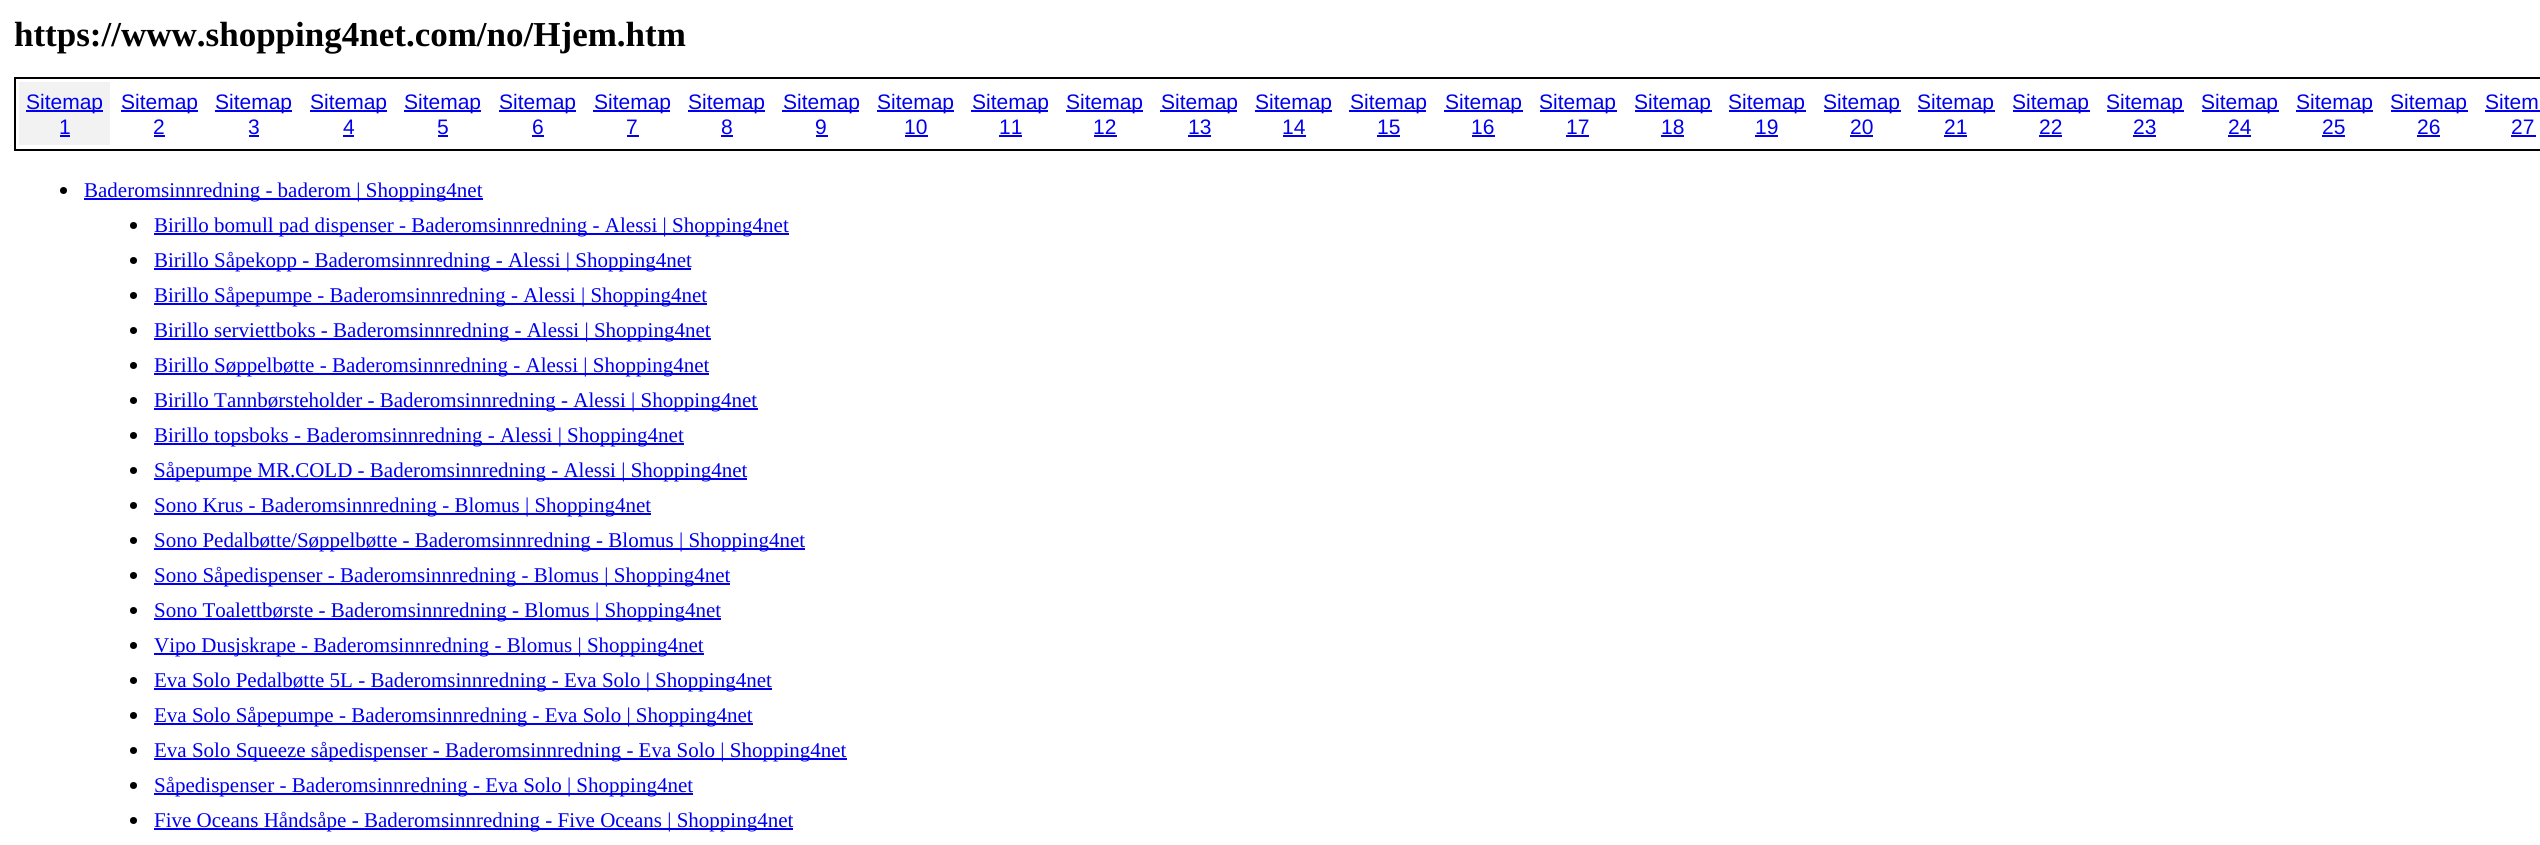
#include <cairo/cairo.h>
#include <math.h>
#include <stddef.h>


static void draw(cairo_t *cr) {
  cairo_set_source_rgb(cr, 1, 1, 1);
  cairo_paint(cr);
  cairo_rectangle(cr, 15, 78, 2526, 72);
  cairo_set_source_rgb(cr, 0, 0, 0);
  cairo_stroke(cr);
  cairo_set_source_rgb(cr, 242 / 255.0, 242 / 255.0, 242 / 255.0);
  cairo_rectangle(cr, 19, 82, 91, 63);
  cairo_fill(cr);
  cairo_set_source_rgb(cr, 0, 0, 238 / 255.0);
  cairo_rectangle(cr, 26, 110, 77, 2);
  cairo_fill(cr);
  cairo_rectangle(cr, 60, 135, 10, 2);
  cairo_fill(cr);
  cairo_rectangle(cr, 121, 110, 77, 2);
  cairo_fill(cr);
  cairo_rectangle(cr, 154, 135, 11, 2);
  cairo_fill(cr);
  cairo_rectangle(cr, 215, 110, 77, 2);
  cairo_fill(cr);
  cairo_rectangle(cr, 249, 135, 10, 2);
  cairo_fill(cr);
  cairo_rectangle(cr, 310, 110, 77, 2);
  cairo_fill(cr);
  cairo_rectangle(cr, 343, 135, 11, 2);
  cairo_fill(cr);
  cairo_rectangle(cr, 404, 110, 77, 2);
  cairo_fill(cr);
  cairo_rectangle(cr, 438, 135, 10, 2);
  cairo_fill(cr);
  cairo_rectangle(cr, 499, 110, 77, 2);
  cairo_fill(cr);
  cairo_rectangle(cr, 532, 135, 12, 2);
  cairo_fill(cr);
  cairo_rectangle(cr, 593, 110, 77, 2);
  cairo_fill(cr);
  cairo_rectangle(cr, 627, 135, 12, 2);
  cairo_fill(cr);
  cairo_rectangle(cr, 688, 110, 77, 2);
  cairo_fill(cr);
  cairo_rectangle(cr, 721, 135, 12, 2);
  cairo_fill(cr);
  cairo_rectangle(cr, 782, 110, 77, 2);
  cairo_fill(cr);
  cairo_rectangle(cr, 816, 135, 12, 2);
  cairo_fill(cr);
  cairo_rectangle(cr, 877, 110, 77, 2);
  cairo_fill(cr);
  cairo_rectangle(cr, 905, 135, 23, 2);
  cairo_fill(cr);
  cairo_rectangle(cr, 971, 110, 77, 2);
  cairo_fill(cr);
  cairo_rectangle(cr, 999, 135, 23, 2);
  cairo_fill(cr);
  cairo_rectangle(cr, 1066, 110, 77, 2);
  cairo_fill(cr);
  cairo_rectangle(cr, 1094, 135, 23, 2);
  cairo_fill(cr);
  cairo_rectangle(cr, 1160, 110, 77, 2);
  cairo_fill(cr);
  cairo_rectangle(cr, 1188, 135, 23, 2);
  cairo_fill(cr);
  cairo_rectangle(cr, 1255, 110, 77, 2);
  cairo_fill(cr);
  cairo_rectangle(cr, 1283, 135, 23, 2);
  cairo_fill(cr);
  cairo_rectangle(cr, 1349, 110, 77, 2);
  cairo_fill(cr);
  cairo_rectangle(cr, 1377, 135, 23, 2);
  cairo_fill(cr);
  cairo_rectangle(cr, 1444, 110, 79, 2);
  cairo_fill(cr);
  cairo_rectangle(cr, 1472, 135, 23, 2);
  cairo_fill(cr);
  cairo_rectangle(cr, 1540, 110, 77, 2);
  cairo_fill(cr);
  cairo_rectangle(cr, 1566, 135, 23, 2);
  cairo_fill(cr);
  cairo_rectangle(cr, 1635, 110, 77, 2);
  cairo_fill(cr);
  cairo_rectangle(cr, 1661, 135, 23, 2);
  cairo_fill(cr);
  cairo_rectangle(cr, 1729, 110, 77, 2);
  cairo_fill(cr);
  cairo_rectangle(cr, 1755, 135, 23, 2);
  cairo_fill(cr);
  cairo_rectangle(cr, 1824, 110, 77, 2);
  cairo_fill(cr);
  cairo_rectangle(cr, 1850, 135, 23, 2);
  cairo_fill(cr);
  cairo_rectangle(cr, 1918, 110, 77, 2);
  cairo_fill(cr);
  cairo_rectangle(cr, 1944, 135, 23, 2);
  cairo_fill(cr);
  cairo_rectangle(cr, 2013, 110, 77, 2);
  cairo_fill(cr);
  cairo_rectangle(cr, 2039, 135, 23, 2);
  cairo_fill(cr);
  cairo_rectangle(cr, 2107, 110, 77, 2);
  cairo_fill(cr);
  cairo_rectangle(cr, 2133, 135, 23, 2);
  cairo_fill(cr);
  cairo_rectangle(cr, 2202, 110, 77, 2);
  cairo_fill(cr);
  cairo_rectangle(cr, 2228, 135, 23, 2);
  cairo_fill(cr);
  cairo_rectangle(cr, 2296, 110, 77, 2);
  cairo_fill(cr);
  cairo_rectangle(cr, 2322, 135, 23, 2);
  cairo_fill(cr);
  cairo_rectangle(cr, 2391, 110, 77, 2);
  cairo_fill(cr);
  cairo_rectangle(cr, 2417, 135, 23, 2);
  cairo_fill(cr);
  cairo_rectangle(cr, 2485, 110, 55, 2);
  cairo_fill(cr);
  cairo_rectangle(cr, 2511, 135, 25, 2);
  cairo_fill(cr);
  cairo_set_source_rgb(cr, 0, 0, 0);
  cairo_arc(cr, 63.5, 190.5, 3.5, 0, 2 * M_PI);
  cairo_fill(cr);
  cairo_set_source_rgb(cr, 0, 0, 238 / 255.0);
  cairo_rectangle(cr, 84, 198, 399, 2);
  cairo_fill(cr);
  cairo_set_source_rgb(cr, 0, 0, 0);
  cairo_arc(cr, 133.5, 225.5, 3.5, 0, 2 * M_PI);
  cairo_fill(cr);
  cairo_set_source_rgb(cr, 0, 0, 238 / 255.0);
  cairo_rectangle(cr, 154, 233, 635, 2);
  cairo_fill(cr);
  cairo_set_source_rgb(cr, 0, 0, 0);
  cairo_arc(cr, 133.5, 260.5, 3.5, 0, 2 * M_PI);
  cairo_fill(cr);
  cairo_set_source_rgb(cr, 0, 0, 238 / 255.0);
  cairo_rectangle(cr, 154, 268, 537, 2);
  cairo_fill(cr);
  cairo_set_source_rgb(cr, 0, 0, 0);
  cairo_arc(cr, 133.5, 295.5, 3.5, 0, 2 * M_PI);
  cairo_fill(cr);
  cairo_set_source_rgb(cr, 0, 0, 238 / 255.0);
  cairo_rectangle(cr, 154, 303, 553, 2);
  cairo_fill(cr);
  cairo_set_source_rgb(cr, 0, 0, 0);
  cairo_arc(cr, 133.5, 330.5, 3.5, 0, 2 * M_PI);
  cairo_fill(cr);
  cairo_set_source_rgb(cr, 0, 0, 238 / 255.0);
  cairo_rectangle(cr, 154, 338, 557, 2);
  cairo_fill(cr);
  cairo_set_source_rgb(cr, 0, 0, 0);
  cairo_arc(cr, 133.5, 365.5, 3.5, 0, 2 * M_PI);
  cairo_fill(cr);
  cairo_set_source_rgb(cr, 0, 0, 238 / 255.0);
  cairo_rectangle(cr, 154, 373, 555, 2);
  cairo_fill(cr);
  cairo_set_source_rgb(cr, 0, 0, 0);
  cairo_arc(cr, 133.5, 400.5, 3.5, 0, 2 * M_PI);
  cairo_fill(cr);
  cairo_set_source_rgb(cr, 0, 0, 238 / 255.0);
  cairo_rectangle(cr, 154, 408, 604, 2);
  cairo_fill(cr);
  cairo_set_source_rgb(cr, 0, 0, 0);
  cairo_arc(cr, 133.5, 435.5, 3.5, 0, 2 * M_PI);
  cairo_fill(cr);
  cairo_set_source_rgb(cr, 0, 0, 238 / 255.0);
  cairo_rectangle(cr, 154, 443, 530, 2);
  cairo_fill(cr);
  cairo_set_source_rgb(cr, 0, 0, 0);
  cairo_arc(cr, 133.5, 470.5, 3.5, 0, 2 * M_PI);
  cairo_fill(cr);
  cairo_set_source_rgb(cr, 0, 0, 238 / 255.0);
  cairo_rectangle(cr, 154, 478, 593, 2);
  cairo_fill(cr);
  cairo_set_source_rgb(cr, 0, 0, 0);
  cairo_arc(cr, 133.5, 505.5, 3.5, 0, 2 * M_PI);
  cairo_fill(cr);
  cairo_set_source_rgb(cr, 0, 0, 238 / 255.0);
  cairo_rectangle(cr, 154, 513, 497, 2);
  cairo_fill(cr);
  cairo_set_source_rgb(cr, 0, 0, 0);
  cairo_arc(cr, 133.5, 540.5, 3.5, 0, 2 * M_PI);
  cairo_fill(cr);
  cairo_set_source_rgb(cr, 0, 0, 238 / 255.0);
  cairo_rectangle(cr, 154, 548, 651, 2);
  cairo_fill(cr);
  cairo_set_source_rgb(cr, 0, 0, 0);
  cairo_arc(cr, 133.5, 575.5, 3.5, 0, 2 * M_PI);
  cairo_fill(cr);
  cairo_set_source_rgb(cr, 0, 0, 238 / 255.0);
  cairo_rectangle(cr, 154, 583, 576, 2);
  cairo_fill(cr);
  cairo_set_source_rgb(cr, 0, 0, 0);
  cairo_arc(cr, 133.5, 610.5, 3.5, 0, 2 * M_PI);
  cairo_fill(cr);
  cairo_set_source_rgb(cr, 0, 0, 238 / 255.0);
  cairo_rectangle(cr, 154, 618, 567, 2);
  cairo_fill(cr);
  cairo_set_source_rgb(cr, 0, 0, 0);
  cairo_arc(cr, 133.5, 645.5, 3.5, 0, 2 * M_PI);
  cairo_fill(cr);
  cairo_set_source_rgb(cr, 0, 0, 238 / 255.0);
  cairo_rectangle(cr, 154, 653, 550, 2);
  cairo_fill(cr);
  cairo_set_source_rgb(cr, 0, 0, 0);
  cairo_arc(cr, 133.5, 680.5, 3.5, 0, 2 * M_PI);
  cairo_fill(cr);
  cairo_set_source_rgb(cr, 0, 0, 238 / 255.0);
  cairo_rectangle(cr, 154, 688, 618, 2);
  cairo_fill(cr);
  cairo_set_source_rgb(cr, 0, 0, 0);
  cairo_arc(cr, 133.5, 715.5, 3.5, 0, 2 * M_PI);
  cairo_fill(cr);
  cairo_set_source_rgb(cr, 0, 0, 238 / 255.0);
  cairo_rectangle(cr, 154, 723, 599, 2);
  cairo_fill(cr);
  cairo_set_source_rgb(cr, 0, 0, 0);
  cairo_arc(cr, 133.5, 750.5, 3.5, 0, 2 * M_PI);
  cairo_fill(cr);
  cairo_set_source_rgb(cr, 0, 0, 238 / 255.0);
  cairo_rectangle(cr, 154, 758, 693, 2);
  cairo_fill(cr);
  cairo_set_source_rgb(cr, 0, 0, 0);
  cairo_arc(cr, 133.5, 785.5, 3.5, 0, 2 * M_PI);
  cairo_fill(cr);
  cairo_set_source_rgb(cr, 0, 0, 238 / 255.0);
  cairo_rectangle(cr, 154, 793, 539, 2);
  cairo_fill(cr);
  cairo_set_source_rgb(cr, 0, 0, 0);
  cairo_arc(cr, 133.5, 820.5, 3.5, 0, 2 * M_PI);
  cairo_fill(cr);
  cairo_set_source_rgb(cr, 0, 0, 238 / 255.0);
  cairo_rectangle(cr, 154, 828, 639, 2);
  cairo_fill(cr);
  cairo_select_font_face(cr, "Liberation Serif", CAIRO_FONT_SLANT_NORMAL, CAIRO_FONT_WEIGHT_BOLD);
  cairo_set_font_size(cr, 35);
  cairo_set_source_rgb(cr, 0, 0, 0);
  cairo_move_to(cr, 14, 46);
  cairo_show_text(cr, "https://www.shopping4net.com/no/Hjem.htm");
  cairo_select_font_face(cr, "Liberation Sans", CAIRO_FONT_SLANT_NORMAL, CAIRO_FONT_WEIGHT_NORMAL);
  cairo_set_font_size(cr, 21);
  cairo_set_source_rgb(cr, 0, 0, 238 / 255.0);
  cairo_move_to(cr, 26, 109);
  cairo_show_text(cr, "Sitemap");
  cairo_move_to(cr, 59, 134);
  cairo_show_text(cr, "1");
  cairo_move_to(cr, 121, 109);
  cairo_show_text(cr, "Sitemap");
  cairo_move_to(cr, 153, 134);
  cairo_show_text(cr, "2");
  cairo_move_to(cr, 215, 109);
  cairo_show_text(cr, "Sitemap");
  cairo_move_to(cr, 248, 134);
  cairo_show_text(cr, "3");
  cairo_move_to(cr, 310, 109);
  cairo_show_text(cr, "Sitemap");
  cairo_move_to(cr, 343, 134);
  cairo_show_text(cr, "4");
  cairo_move_to(cr, 404, 109);
  cairo_show_text(cr, "Sitemap");
  cairo_move_to(cr, 437, 134);
  cairo_show_text(cr, "5");
  cairo_move_to(cr, 499, 109);
  cairo_show_text(cr, "Sitemap");
  cairo_move_to(cr, 532, 134);
  cairo_show_text(cr, "6");
  cairo_move_to(cr, 594, 109);
  cairo_show_text(cr, "Sitemap");
  cairo_move_to(cr, 626, 134);
  cairo_show_text(cr, "7");
  cairo_move_to(cr, 688, 109);
  cairo_show_text(cr, "Sitemap");
  cairo_move_to(cr, 721, 134);
  cairo_show_text(cr, "8");
  cairo_move_to(cr, 783, 109);
  cairo_show_text(cr, "Sitemap");
  cairo_move_to(cr, 815, 134);
  cairo_show_text(cr, "9");
  cairo_move_to(cr, 877, 109);
  cairo_show_text(cr, "Sitemap");
  cairo_move_to(cr, 904, 134);
  cairo_show_text(cr, "10");
  cairo_move_to(cr, 972, 109);
  cairo_show_text(cr, "Sitemap");
  cairo_move_to(cr, 999, 134);
  cairo_show_text(cr, "11");
  cairo_move_to(cr, 1066, 109);
  cairo_show_text(cr, "Sitemap");
  cairo_move_to(cr, 1093, 134);
  cairo_show_text(cr, "12");
  cairo_move_to(cr, 1161, 109);
  cairo_show_text(cr, "Sitemap");
  cairo_move_to(cr, 1188, 134);
  cairo_show_text(cr, "13");
  cairo_move_to(cr, 1255, 109);
  cairo_show_text(cr, "Sitemap");
  cairo_move_to(cr, 1282, 134);
  cairo_show_text(cr, "14");
  cairo_move_to(cr, 1350, 109);
  cairo_show_text(cr, "Sitemap");
  cairo_move_to(cr, 1377, 134);
  cairo_show_text(cr, "15");
  cairo_move_to(cr, 1445, 109);
  cairo_show_text(cr, "Sitemap");
  cairo_move_to(cr, 1471, 134);
  cairo_show_text(cr, "16");
  cairo_move_to(cr, 1539, 109);
  cairo_show_text(cr, "Sitemap");
  cairo_move_to(cr, 1566, 134);
  cairo_show_text(cr, "17");
  cairo_move_to(cr, 1634, 109);
  cairo_show_text(cr, "Sitemap");
  cairo_move_to(cr, 1661, 134);
  cairo_show_text(cr, "18");
  cairo_move_to(cr, 1728, 109);
  cairo_show_text(cr, "Sitemap");
  cairo_move_to(cr, 1755, 134);
  cairo_show_text(cr, "19");
  cairo_move_to(cr, 1823, 109);
  cairo_show_text(cr, "Sitemap");
  cairo_move_to(cr, 1850, 134);
  cairo_show_text(cr, "20");
  cairo_move_to(cr, 1917, 109);
  cairo_show_text(cr, "Sitemap");
  cairo_move_to(cr, 1944, 134);
  cairo_show_text(cr, "21");
  cairo_move_to(cr, 2012, 109);
  cairo_show_text(cr, "Sitemap");
  cairo_move_to(cr, 2039, 134);
  cairo_show_text(cr, "22");
  cairo_move_to(cr, 2106, 109);
  cairo_show_text(cr, "Sitemap");
  cairo_move_to(cr, 2133, 134);
  cairo_show_text(cr, "23");
  cairo_move_to(cr, 2201, 109);
  cairo_show_text(cr, "Sitemap");
  cairo_move_to(cr, 2228, 134);
  cairo_show_text(cr, "24");
  cairo_move_to(cr, 2296, 109);
  cairo_show_text(cr, "Sitemap");
  cairo_move_to(cr, 2322, 134);
  cairo_show_text(cr, "25");
  cairo_move_to(cr, 2390, 109);
  cairo_show_text(cr, "Sitemap");
  cairo_move_to(cr, 2417, 134);
  cairo_show_text(cr, "26");
  cairo_move_to(cr, 2485, 109);
  cairo_show_text(cr, "Sitem");
  cairo_move_to(cr, 2511, 134);
  cairo_show_text(cr, "27");
  cairo_select_font_face(cr, "Liberation Serif", CAIRO_FONT_SLANT_NORMAL, CAIRO_FONT_WEIGHT_NORMAL);
  cairo_move_to(cr, 84, 197);
  cairo_show_text(cr, "Baderomsinnredning - baderom | Shopping4net");
  cairo_move_to(cr, 154, 232);
  cairo_show_text(cr, "Birillo bomull pad dispenser - Baderomsinnredning - Alessi | Shopping4net");
  cairo_move_to(cr, 154, 267);
  cairo_show_text(cr, "Birillo Såpekopp - Baderomsinnredning - Alessi | Shopping4net");
  cairo_move_to(cr, 154, 302);
  cairo_show_text(cr, "Birillo Såpepumpe - Baderomsinnredning - Alessi | Shopping4net");
  cairo_move_to(cr, 154, 337);
  cairo_show_text(cr, "Birillo serviettboks - Baderomsinnredning - Alessi | Shopping4net");
  cairo_move_to(cr, 154, 372);
  cairo_show_text(cr, "Birillo Søppelbøtte - Baderomsinnredning - Alessi | Shopping4net");
  cairo_move_to(cr, 154, 407);
  cairo_show_text(cr, "Birillo Tannbørsteholder - Baderomsinnredning - Alessi | Shopping4net");
  cairo_move_to(cr, 154, 442);
  cairo_show_text(cr, "Birillo topsboks - Baderomsinnredning - Alessi | Shopping4net");
  cairo_move_to(cr, 154, 477);
  cairo_show_text(cr, "Såpepumpe MR.COLD - Baderomsinnredning - Alessi | Shopping4net");
  cairo_move_to(cr, 154, 512);
  cairo_show_text(cr, "Sono Krus - Baderomsinnredning - Blomus | Shopping4net");
  cairo_move_to(cr, 154, 547);
  cairo_show_text(cr, "Sono Pedalbøtte/Søppelbøtte - Baderomsinnredning - Blomus | Shopping4net");
  cairo_move_to(cr, 154, 582);
  cairo_show_text(cr, "Sono Såpedispenser - Baderomsinnredning - Blomus | Shopping4net");
  cairo_move_to(cr, 154, 617);
  cairo_show_text(cr, "Sono Toalettbørste - Baderomsinnredning - Blomus | Shopping4net");
  cairo_move_to(cr, 154, 652);
  cairo_show_text(cr, "Vipo Dusjskrape - Baderomsinnredning - Blomus | Shopping4net");
  cairo_move_to(cr, 154, 687);
  cairo_show_text(cr, "Eva Solo Pedalbøtte 5L - Baderomsinnredning - Eva Solo | Shopping4net");
  cairo_move_to(cr, 154, 722);
  cairo_show_text(cr, "Eva Solo Såpepumpe - Baderomsinnredning - Eva Solo | Shopping4net");
  cairo_move_to(cr, 154, 757);
  cairo_show_text(cr, "Eva Solo Squeeze såpedispenser - Baderomsinnredning - Eva Solo | Shopping4net");
  cairo_move_to(cr, 154, 792);
  cairo_show_text(cr, "Såpedispenser - Baderomsinnredning - Eva Solo | Shopping4net");
  cairo_move_to(cr, 154, 827);
  cairo_show_text(cr, "Five Oceans Håndsåpe - Baderomsinnredning - Five Oceans | Shopping4net");
}

int main(void) {
  cairo_surface_t *surface = cairo_image_surface_create(CAIRO_FORMAT_RGB24, 2540, 845);
  cairo_t *cr = cairo_create(surface);
  cairo_font_options_t *options = cairo_font_options_create();
  cairo_font_options_set_hint_metrics(options, CAIRO_HINT_METRICS_OFF);
  cairo_font_options_set_hint_style(options, CAIRO_HINT_STYLE_NONE);
  cairo_set_font_options(cr, options);
  cairo_set_miter_limit(cr, 4);
  draw(cr);
  cairo_surface_write_to_png(surface, "out.png");
  cairo_font_options_destroy(options);
  cairo_destroy(cr);
  cairo_surface_destroy(surface);
  return 0;
}
